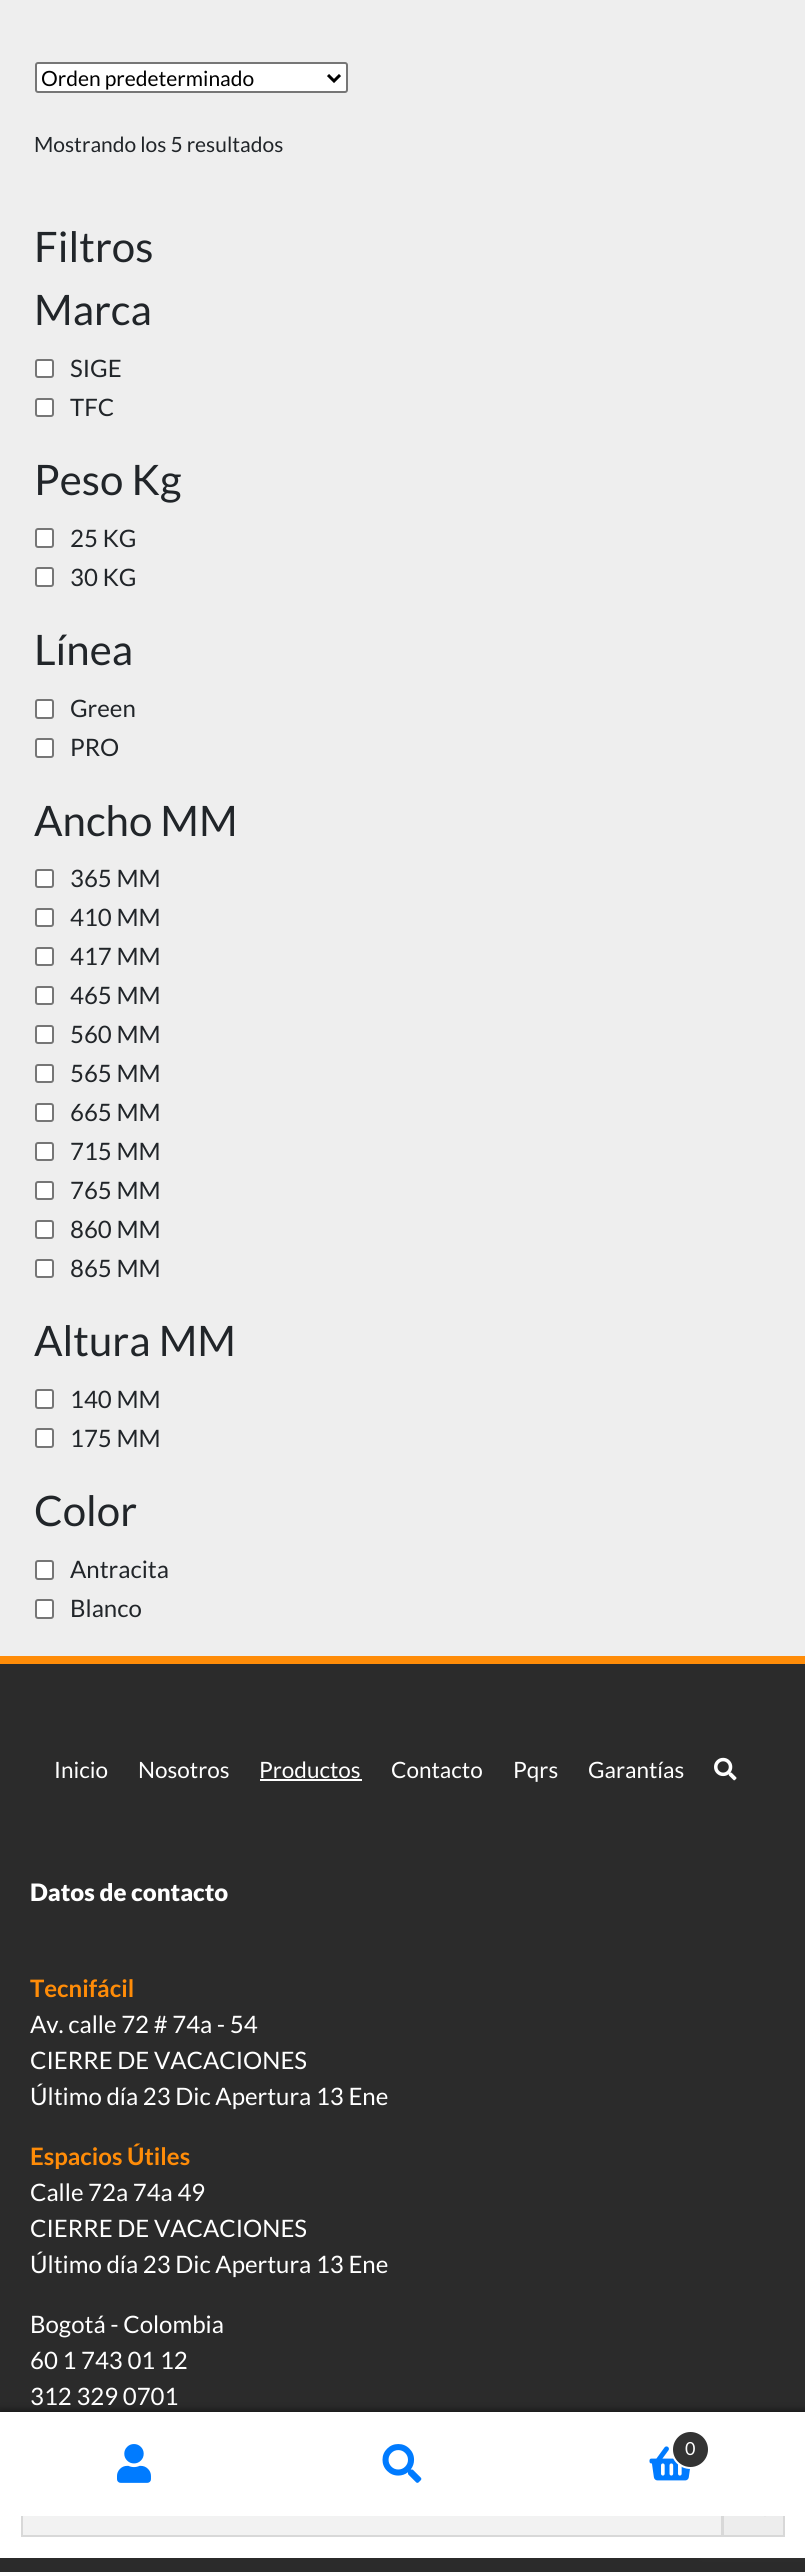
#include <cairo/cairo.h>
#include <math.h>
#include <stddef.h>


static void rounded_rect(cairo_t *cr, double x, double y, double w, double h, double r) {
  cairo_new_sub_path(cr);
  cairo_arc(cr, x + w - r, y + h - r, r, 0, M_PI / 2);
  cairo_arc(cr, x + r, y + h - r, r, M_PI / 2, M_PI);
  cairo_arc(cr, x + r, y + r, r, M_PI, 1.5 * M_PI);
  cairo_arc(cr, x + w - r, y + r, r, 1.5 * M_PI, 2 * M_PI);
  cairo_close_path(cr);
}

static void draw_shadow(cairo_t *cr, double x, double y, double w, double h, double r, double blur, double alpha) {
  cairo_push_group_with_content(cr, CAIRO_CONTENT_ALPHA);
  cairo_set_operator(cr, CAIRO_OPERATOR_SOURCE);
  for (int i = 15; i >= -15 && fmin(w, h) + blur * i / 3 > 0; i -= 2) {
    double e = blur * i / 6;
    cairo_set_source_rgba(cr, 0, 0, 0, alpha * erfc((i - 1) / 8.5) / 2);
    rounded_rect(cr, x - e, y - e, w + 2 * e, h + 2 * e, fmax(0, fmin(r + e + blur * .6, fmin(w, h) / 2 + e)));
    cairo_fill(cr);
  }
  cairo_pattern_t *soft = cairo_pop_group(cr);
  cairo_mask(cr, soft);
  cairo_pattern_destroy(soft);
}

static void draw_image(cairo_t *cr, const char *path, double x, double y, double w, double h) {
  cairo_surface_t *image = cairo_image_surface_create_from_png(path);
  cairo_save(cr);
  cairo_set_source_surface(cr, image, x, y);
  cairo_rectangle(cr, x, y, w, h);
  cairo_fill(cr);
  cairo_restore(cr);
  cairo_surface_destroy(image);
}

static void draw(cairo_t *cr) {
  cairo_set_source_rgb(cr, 238 / 255.0, 238 / 255.0, 238 / 255.0);
  cairo_paint(cr);
  cairo_set_source_rgb(cr, 1, 1, 1);
  rounded_rect(cr, 36, 63, 311, 29, 2);
  cairo_fill_preserve(cr);
  cairo_set_source_rgb(cr, 118 / 255.0, 118 / 255.0, 118 / 255.0);
  cairo_stroke(cr);
  cairo_new_path(cr);
  cairo_move_to(cr, 328, 75);
  cairo_line_to(cr, 334, 81);
  cairo_line_to(cr, 340, 75);
  cairo_set_source_rgb(cr, 0, 0, 0);
  cairo_set_line_width(cr, 3);
  cairo_stroke(cr);
  cairo_set_source_rgb(cr, 1, 1, 1);
  rounded_rect(cr, 36, 360, 17, 17, 2);
  cairo_fill_preserve(cr);
  cairo_set_source_rgb(cr, 118 / 255.0, 118 / 255.0, 118 / 255.0);
  cairo_set_line_width(cr, 2);
  cairo_stroke(cr);
  cairo_set_source_rgb(cr, 1, 1, 1);
  rounded_rect(cr, 36, 399, 17, 17, 2);
  cairo_fill_preserve(cr);
  cairo_set_source_rgb(cr, 118 / 255.0, 118 / 255.0, 118 / 255.0);
  cairo_stroke(cr);
  cairo_set_source_rgb(cr, 1, 1, 1);
  rounded_rect(cr, 36, 529, 17, 18, 2);
  cairo_fill_preserve(cr);
  cairo_set_source_rgb(cr, 118 / 255.0, 118 / 255.0, 118 / 255.0);
  cairo_stroke(cr);
  cairo_set_source_rgb(cr, 1, 1, 1);
  rounded_rect(cr, 36, 568, 17, 18, 2);
  cairo_fill_preserve(cr);
  cairo_set_source_rgb(cr, 118 / 255.0, 118 / 255.0, 118 / 255.0);
  cairo_stroke(cr);
  cairo_set_source_rgb(cr, 1, 1, 1);
  rounded_rect(cr, 36, 700, 17, 18, 2);
  cairo_fill_preserve(cr);
  cairo_set_source_rgb(cr, 118 / 255.0, 118 / 255.0, 118 / 255.0);
  cairo_stroke(cr);
  cairo_set_source_rgb(cr, 1, 1, 1);
  rounded_rect(cr, 36, 739, 17, 18, 2);
  cairo_fill_preserve(cr);
  cairo_set_source_rgb(cr, 118 / 255.0, 118 / 255.0, 118 / 255.0);
  cairo_stroke(cr);
  cairo_set_source_rgb(cr, 1, 1, 1);
  rounded_rect(cr, 36, 870, 17, 17, 2);
  cairo_fill_preserve(cr);
  cairo_set_source_rgb(cr, 118 / 255.0, 118 / 255.0, 118 / 255.0);
  cairo_stroke(cr);
  cairo_set_source_rgb(cr, 1, 1, 1);
  rounded_rect(cr, 36, 909, 17, 17, 2);
  cairo_fill_preserve(cr);
  cairo_set_source_rgb(cr, 118 / 255.0, 118 / 255.0, 118 / 255.0);
  cairo_stroke(cr);
  cairo_set_source_rgb(cr, 1, 1, 1);
  rounded_rect(cr, 36, 948, 17, 17, 2);
  cairo_fill_preserve(cr);
  cairo_set_source_rgb(cr, 118 / 255.0, 118 / 255.0, 118 / 255.0);
  cairo_stroke(cr);
  cairo_set_source_rgb(cr, 1, 1, 1);
  rounded_rect(cr, 36, 987, 17, 17, 2);
  cairo_fill_preserve(cr);
  cairo_set_source_rgb(cr, 118 / 255.0, 118 / 255.0, 118 / 255.0);
  cairo_stroke(cr);
  cairo_set_source_rgb(cr, 1, 1, 1);
  rounded_rect(cr, 36, 1026, 17, 17, 2);
  cairo_fill_preserve(cr);
  cairo_set_source_rgb(cr, 118 / 255.0, 118 / 255.0, 118 / 255.0);
  cairo_stroke(cr);
  cairo_set_source_rgb(cr, 1, 1, 1);
  rounded_rect(cr, 36, 1065, 17, 17, 2);
  cairo_fill_preserve(cr);
  cairo_set_source_rgb(cr, 118 / 255.0, 118 / 255.0, 118 / 255.0);
  cairo_stroke(cr);
  cairo_set_source_rgb(cr, 1, 1, 1);
  rounded_rect(cr, 36, 1104, 17, 17, 2);
  cairo_fill_preserve(cr);
  cairo_set_source_rgb(cr, 118 / 255.0, 118 / 255.0, 118 / 255.0);
  cairo_stroke(cr);
  cairo_set_source_rgb(cr, 1, 1, 1);
  rounded_rect(cr, 36, 1143, 17, 17, 2);
  cairo_fill_preserve(cr);
  cairo_set_source_rgb(cr, 118 / 255.0, 118 / 255.0, 118 / 255.0);
  cairo_stroke(cr);
  cairo_set_source_rgb(cr, 1, 1, 1);
  rounded_rect(cr, 36, 1182, 17, 17, 2);
  cairo_fill_preserve(cr);
  cairo_set_source_rgb(cr, 118 / 255.0, 118 / 255.0, 118 / 255.0);
  cairo_stroke(cr);
  cairo_set_source_rgb(cr, 1, 1, 1);
  rounded_rect(cr, 36, 1221, 17, 17, 2);
  cairo_fill_preserve(cr);
  cairo_set_source_rgb(cr, 118 / 255.0, 118 / 255.0, 118 / 255.0);
  cairo_stroke(cr);
  cairo_set_source_rgb(cr, 1, 1, 1);
  rounded_rect(cr, 36, 1260, 17, 17, 2);
  cairo_fill_preserve(cr);
  cairo_set_source_rgb(cr, 118 / 255.0, 118 / 255.0, 118 / 255.0);
  cairo_stroke(cr);
  cairo_set_source_rgb(cr, 1, 1, 1);
  rounded_rect(cr, 36, 1390, 17, 18, 2);
  cairo_fill_preserve(cr);
  cairo_set_source_rgb(cr, 118 / 255.0, 118 / 255.0, 118 / 255.0);
  cairo_stroke(cr);
  cairo_set_source_rgb(cr, 1, 1, 1);
  rounded_rect(cr, 36, 1429, 17, 18, 2);
  cairo_fill_preserve(cr);
  cairo_set_source_rgb(cr, 118 / 255.0, 118 / 255.0, 118 / 255.0);
  cairo_stroke(cr);
  cairo_set_source_rgb(cr, 1, 1, 1);
  rounded_rect(cr, 36, 1561, 17, 18, 2);
  cairo_fill_preserve(cr);
  cairo_set_source_rgb(cr, 118 / 255.0, 118 / 255.0, 118 / 255.0);
  cairo_stroke(cr);
  cairo_set_source_rgb(cr, 1, 1, 1);
  rounded_rect(cr, 36, 1600, 17, 18, 2);
  cairo_fill_preserve(cr);
  cairo_set_source_rgb(cr, 118 / 255.0, 118 / 255.0, 118 / 255.0);
  cairo_stroke(cr);
  cairo_set_source_rgb(cr, 43 / 255.0, 43 / 255.0, 43 / 255.0);
  cairo_rectangle(cr, 0, 1664, 805, 908);
  cairo_fill(cr);
  cairo_set_source_rgb(cr, 1, 140 / 255.0, 8 / 255.0);
  cairo_rectangle(cr, 0, 1656, 805, 8);
  cairo_fill(cr);
  cairo_set_source_rgb(cr, 1, 1, 1);
  cairo_rectangle(cr, 260, 1779, 102, 2);
  cairo_fill(cr);
  draw_image(cr, "images/1.png", 714, 1757, 23, 24);
  cairo_set_source_rgb(cr, 0, 0, 0);
  draw_shadow(cr, 0, 2412, 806, 104, 0, 4.5, 0.7);
  cairo_set_source_rgb(cr, 1, 1, 1);
  cairo_rectangle(cr, 0, 2412, 805, 2);
  cairo_fill(cr);
  cairo_set_source_rgb(cr, 128 / 255.0, 128 / 255.0, 128 / 255.0);
  draw_shadow(cr, 701, 2462, 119, 90, 3, 4, 1);
  cairo_set_source_rgb(cr, 1, 1, 1);
  cairo_rectangle(cr, 0, 2516, 805, 42);
  cairo_fill(cr);
  cairo_set_source_rgb(cr, 242 / 255.0, 242 / 255.0, 242 / 255.0);
  cairo_rectangle(cr, 23, 2516, 698, 19);
  cairo_fill(cr);
  cairo_set_source_rgb(cr, 237 / 255.0, 237 / 255.0, 237 / 255.0);
  cairo_rectangle(cr, 724, 2516, 59, 19);
  cairo_fill(cr);
  cairo_rectangle(cr, 723, 2472, 61, 64);
  cairo_set_source_rgb(cr, 216 / 255.0, 216 / 255.0, 216 / 255.0);
  cairo_stroke(cr);
  cairo_rectangle(cr, 22, 2472, 700, 64);
  cairo_stroke(cr);
  cairo_set_source_rgb(cr, 1, 1, 1);
  cairo_rectangle(cr, 0, 2414, 805, 102);
  cairo_fill(cr);
  draw_image(cr, "images/2.png", 117, 2444, 34, 39);
  draw_image(cr, "images/3.png", 649, 2446, 41, 35);
  cairo_set_source_rgb(cr, 51 / 255.0, 51 / 255.0, 51 / 255.0);
  cairo_arc(cr, 690.5, 2449.5, 18.5, 0, 2 * M_PI);
  cairo_fill_preserve(cr);
  cairo_set_source_rgb(cr, 1, 1, 1);
  cairo_stroke(cr);
  draw_image(cr, "images/4.png", 382, 2444, 40, 39);
  draw_image(cr, "images/5.png", 764, 2516, 2, 1);
  cairo_select_font_face(cr, "Lato", CAIRO_FONT_SLANT_NORMAL, CAIRO_FONT_WEIGHT_NORMAL);
  cairo_set_font_size(cr, 21);
  cairo_set_source_rgb(cr, 0, 0, 0);
  cairo_move_to(cr, 41, 86);
  cairo_show_text(cr, "Orden predeterminado");
  cairo_set_source_rgb(cr, 33 / 255.0, 37 / 255.0, 41 / 255.0);
  cairo_move_to(cr, 34, 152);
  cairo_show_text(cr, "Mostrando los 5 resultados");
  cairo_set_font_size(cr, 42);
  cairo_move_to(cr, 34, 262);
  cairo_show_text(cr, "Filtros");
  cairo_move_to(cr, 34, 325);
  cairo_show_text(cr, "Marca");
  cairo_set_font_size(cr, 24);
  cairo_move_to(cr, 70, 377);
  cairo_show_text(cr, "SIGE");
  cairo_move_to(cr, 70, 416);
  cairo_show_text(cr, "TFC");
  cairo_set_font_size(cr, 42);
  cairo_move_to(cr, 34, 495);
  cairo_show_text(cr, "Peso Kg");
  cairo_set_font_size(cr, 24);
  cairo_move_to(cr, 70, 547);
  cairo_show_text(cr, "25 KG");
  cairo_move_to(cr, 70, 586);
  cairo_show_text(cr, "30 KG");
  cairo_set_font_size(cr, 42);
  cairo_move_to(cr, 34, 665);
  cairo_show_text(cr, "Línea");
  cairo_set_font_size(cr, 24);
  cairo_move_to(cr, 70, 717);
  cairo_show_text(cr, "Green");
  cairo_move_to(cr, 70, 756);
  cairo_show_text(cr, "PRO");
  cairo_set_font_size(cr, 42);
  cairo_move_to(cr, 34, 836);
  cairo_show_text(cr, "Ancho MM");
  cairo_set_font_size(cr, 24);
  cairo_move_to(cr, 70, 887);
  cairo_show_text(cr, "365 MM");
  cairo_move_to(cr, 70, 926);
  cairo_show_text(cr, "410 MM");
  cairo_move_to(cr, 70, 965);
  cairo_show_text(cr, "417 MM");
  cairo_move_to(cr, 70, 1004);
  cairo_show_text(cr, "465 MM");
  cairo_move_to(cr, 70, 1043);
  cairo_show_text(cr, "560 MM");
  cairo_move_to(cr, 70, 1082);
  cairo_show_text(cr, "565 MM");
  cairo_move_to(cr, 70, 1121);
  cairo_show_text(cr, "665 MM");
  cairo_move_to(cr, 70, 1160);
  cairo_show_text(cr, "715 MM");
  cairo_move_to(cr, 70, 1199);
  cairo_show_text(cr, "765 MM");
  cairo_move_to(cr, 70, 1238);
  cairo_show_text(cr, "860 MM");
  cairo_move_to(cr, 70, 1277);
  cairo_show_text(cr, "865 MM");
  cairo_set_font_size(cr, 42);
  cairo_move_to(cr, 34, 1356);
  cairo_show_text(cr, "Altura MM");
  cairo_set_font_size(cr, 24);
  cairo_move_to(cr, 70, 1408);
  cairo_show_text(cr, "140 MM");
  cairo_move_to(cr, 70, 1447);
  cairo_show_text(cr, "175 MM");
  cairo_set_font_size(cr, 42);
  cairo_move_to(cr, 34, 1526);
  cairo_show_text(cr, "Color");
  cairo_set_font_size(cr, 24);
  cairo_move_to(cr, 70, 1578);
  cairo_show_text(cr, "Antracita");
  cairo_move_to(cr, 70, 1617);
  cairo_show_text(cr, "Blanco");
  cairo_set_font_size(cr, 22.5);
  cairo_set_source_rgb(cr, 1, 1, 1);
  cairo_move_to(cr, 54, 1778);
  cairo_show_text(cr, "Inicio");
  cairo_move_to(cr, 138, 1778);
  cairo_show_text(cr, "Nosotros");
  cairo_move_to(cr, 259, 1778);
  cairo_show_text(cr, "Productos");
  cairo_move_to(cr, 391, 1778);
  cairo_show_text(cr, "Contacto");
  cairo_move_to(cr, 513, 1778);
  cairo_show_text(cr, "Pqrs");
  cairo_move_to(cr, 588, 1778);
  cairo_show_text(cr, "Garantías");
  cairo_select_font_face(cr, "Lato Black", CAIRO_FONT_SLANT_NORMAL, CAIRO_FONT_WEIGHT_NORMAL);
  cairo_set_font_size(cr, 24);
  cairo_move_to(cr, 30, 1901);
  cairo_show_text(cr, "Datos de contacto");
  cairo_select_font_face(cr, "Lato", CAIRO_FONT_SLANT_NORMAL, CAIRO_FONT_WEIGHT_BOLD);
  cairo_set_source_rgb(cr, 1, 140 / 255.0, 8 / 255.0);
  cairo_move_to(cr, 30, 1997);
  cairo_show_text(cr, "Tecnifácil");
  cairo_select_font_face(cr, "Lato", CAIRO_FONT_SLANT_NORMAL, CAIRO_FONT_WEIGHT_NORMAL);
  cairo_set_source_rgb(cr, 1, 1, 1);
  cairo_move_to(cr, 30, 2033);
  cairo_show_text(cr, "Av. calle 72 # 74a - 54");
  cairo_move_to(cr, 30, 2069);
  cairo_show_text(cr, "CIERRE DE VACACIONES");
  cairo_move_to(cr, 30, 2105);
  cairo_show_text(cr, "Último día 23 Dic Apertura 13 Ene");
  cairo_select_font_face(cr, "Lato", CAIRO_FONT_SLANT_NORMAL, CAIRO_FONT_WEIGHT_BOLD);
  cairo_set_source_rgb(cr, 1, 140 / 255.0, 8 / 255.0);
  cairo_move_to(cr, 30, 2165);
  cairo_show_text(cr, "Espacios Útiles");
  cairo_select_font_face(cr, "Lato", CAIRO_FONT_SLANT_NORMAL, CAIRO_FONT_WEIGHT_NORMAL);
  cairo_set_source_rgb(cr, 1, 1, 1);
  cairo_move_to(cr, 30, 2201);
  cairo_show_text(cr, "Calle 72a 74a 49");
  cairo_move_to(cr, 30, 2237);
  cairo_show_text(cr, "CIERRE DE VACACIONES");
  cairo_move_to(cr, 30, 2273);
  cairo_show_text(cr, "Último día 23 Dic Apertura 13 Ene");
  cairo_move_to(cr, 30, 2333);
  cairo_show_text(cr, "Bogotá - Colombia");
  cairo_move_to(cr, 30, 2369);
  cairo_show_text(cr, "60 1 743 01 12");
  cairo_move_to(cr, 30, 2405);
  cairo_show_text(cr, "312 329 0701");
  cairo_set_font_size(cr, 18);
  cairo_move_to(cr, 685, 2455);
  cairo_show_text(cr, "0");
}

int main(void) {
  cairo_surface_t *surface = cairo_image_surface_create(CAIRO_FORMAT_RGB24, 805, 2572);
  cairo_t *cr = cairo_create(surface);
  cairo_font_options_t *options = cairo_font_options_create();
  cairo_font_options_set_hint_metrics(options, CAIRO_HINT_METRICS_OFF);
  cairo_font_options_set_hint_style(options, CAIRO_HINT_STYLE_NONE);
  cairo_set_font_options(cr, options);
  cairo_set_miter_limit(cr, 4);
  draw(cr);
  cairo_surface_write_to_png(surface, "out.png");
  cairo_font_options_destroy(options);
  cairo_destroy(cr);
  cairo_surface_destroy(surface);
  return 0;
}
